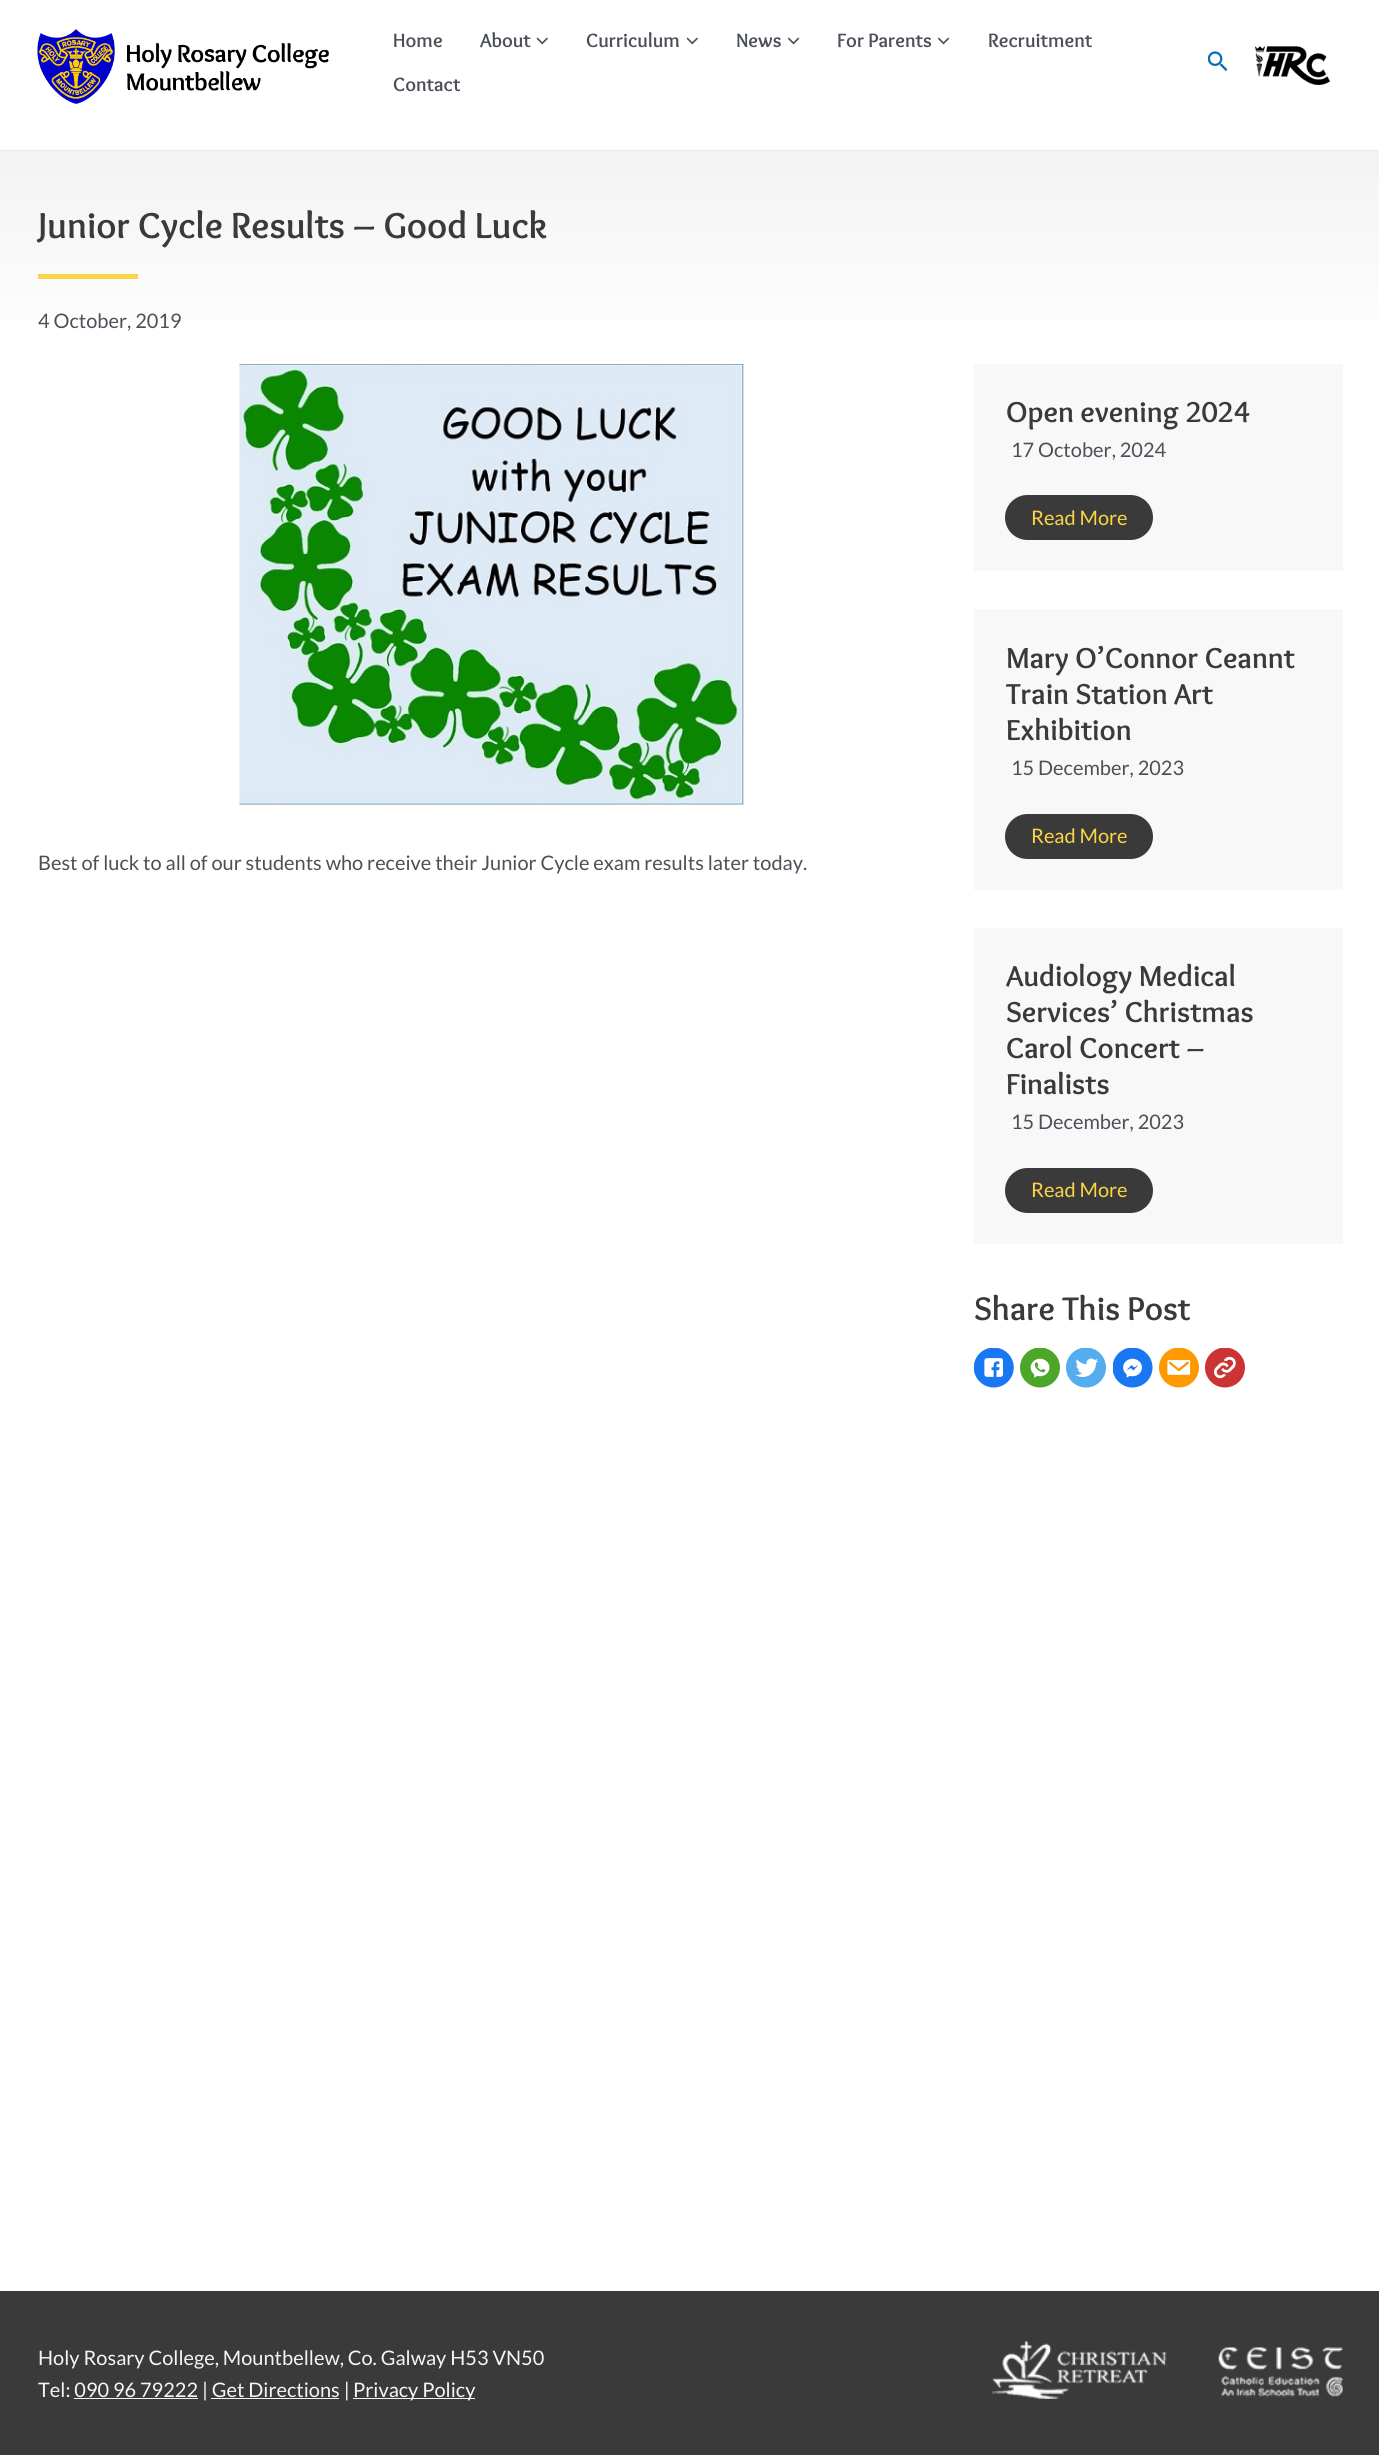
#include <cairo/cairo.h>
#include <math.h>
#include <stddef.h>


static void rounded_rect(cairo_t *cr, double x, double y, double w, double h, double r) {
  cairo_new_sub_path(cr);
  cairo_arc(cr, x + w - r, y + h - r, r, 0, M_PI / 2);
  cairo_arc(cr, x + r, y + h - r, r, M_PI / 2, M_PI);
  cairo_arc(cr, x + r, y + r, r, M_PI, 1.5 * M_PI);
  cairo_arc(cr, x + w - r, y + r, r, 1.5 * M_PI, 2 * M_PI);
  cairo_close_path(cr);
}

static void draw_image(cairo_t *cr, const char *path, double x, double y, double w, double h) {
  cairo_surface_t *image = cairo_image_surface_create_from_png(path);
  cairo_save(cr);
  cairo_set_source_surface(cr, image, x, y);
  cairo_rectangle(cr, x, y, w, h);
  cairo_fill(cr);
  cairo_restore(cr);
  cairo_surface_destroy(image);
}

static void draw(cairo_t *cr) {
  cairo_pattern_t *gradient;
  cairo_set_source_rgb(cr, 1, 1, 1);
  cairo_paint(cr);
  cairo_set_source_rgb(cr, 234 / 255.0, 234 / 255.0, 234 / 255.0);
  cairo_rectangle(cr, 0, 150, 1379, 1);
  cairo_fill(cr);
  draw_image(cr, "images/1.png", 37, 29, 292, 75);
  draw_image(cr, "images/2.png", 536, 37, 12, 8);
  draw_image(cr, "images/2.png", 686, 37, 12, 8);
  draw_image(cr, "images/3.png", 788, 37, 12, 8);
  draw_image(cr, "images/3.png", 938, 37, 12, 8);
  draw_image(cr, "images/4.png", 1208, 51, 20, 20);
  draw_image(cr, "images/5.png", 1255, 46, 75, 39);
  gradient = cairo_pattern_create_linear(690, 151, 690, 364);
  cairo_pattern_add_color_stop_rgba(gradient, 0, 243 / 255.0, 243 / 255.0, 243 / 255.0, 1);
  cairo_pattern_add_color_stop_rgba(gradient, 1, 1, 1, 1, 1);
  cairo_set_source(cr, gradient);
  cairo_pattern_destroy(gradient);
  cairo_rectangle(cr, 0, 151, 1379, 169);
  cairo_fill(cr);
  cairo_set_source_rgb(cr, 253 / 255.0, 212 / 255.0, 70 / 255.0);
  cairo_rectangle(cr, 38, 274, 100, 5);
  cairo_fill(cr);
  draw_image(cr, "images/6.png", 239, 364, 507, 441);
  cairo_set_source_rgb(cr, 248 / 255.0, 248 / 255.0, 248 / 255.0);
  cairo_rectangle(cr, 974, 364, 369, 207);
  cairo_fill(cr);
  cairo_set_source_rgb(cr, 58 / 255.0, 58 / 255.0, 58 / 255.0);
  rounded_rect(cr, 1005, 495, 148, 45, 22.5);
  cairo_fill(cr);
  cairo_set_source_rgb(cr, 248 / 255.0, 248 / 255.0, 248 / 255.0);
  cairo_rectangle(cr, 974, 609, 369, 281);
  cairo_fill(cr);
  cairo_set_source_rgb(cr, 58 / 255.0, 58 / 255.0, 58 / 255.0);
  rounded_rect(cr, 1005, 814, 148, 45, 22.5);
  cairo_fill(cr);
  cairo_set_source_rgb(cr, 248 / 255.0, 248 / 255.0, 248 / 255.0);
  cairo_rectangle(cr, 974, 928, 369, 316);
  cairo_fill(cr);
  cairo_set_source_rgb(cr, 58 / 255.0, 58 / 255.0, 58 / 255.0);
  rounded_rect(cr, 1005, 1168, 148, 45, 22.5);
  cairo_fill(cr);
  draw_image(cr, "images/7.png", 974, 1348, 40, 40);
  draw_image(cr, "images/8.png", 1020, 1348, 40, 40);
  draw_image(cr, "images/9.png", 1066, 1348, 40, 40);
  draw_image(cr, "images/10.png", 1113, 1348, 40, 40);
  draw_image(cr, "images/11.png", 1159, 1348, 40, 40);
  draw_image(cr, "images/12.png", 1205, 1348, 40, 40);
  cairo_rectangle(cr, 0, 2291, 1379, 164);
  cairo_fill(cr);
  cairo_set_source_rgb(cr, 245 / 255.0, 245 / 255.0, 245 / 255.0);
  cairo_rectangle(cr, 353, 2398, 122, 1);
  cairo_fill(cr);
  cairo_rectangle(cr, 74, 2398, 124, 1);
  cairo_fill(cr);
  cairo_rectangle(cr, 211, 2398, 128, 1);
  cairo_fill(cr);
  draw_image(cr, "images/13.png", 991, 2341, 352, 58);
  cairo_select_font_face(cr, "Overlock", CAIRO_FONT_SLANT_NORMAL, CAIRO_FONT_WEIGHT_BOLD);
  cairo_set_font_size(cr, 20);
  cairo_set_source_rgb(cr, 75 / 255.0, 79 / 255.0, 88 / 255.0);
  cairo_move_to(cr, 393, 47);
  cairo_show_text(cr, "Home");
  cairo_move_to(cr, 480, 47);
  cairo_show_text(cr, "About");
  cairo_move_to(cr, 586, 47);
  cairo_show_text(cr, "Curriculum");
  cairo_move_to(cr, 736, 47);
  cairo_show_text(cr, "News");
  cairo_move_to(cr, 837, 47);
  cairo_show_text(cr, "For Parents");
  cairo_move_to(cr, 988, 47);
  cairo_show_text(cr, "Recruitment");
  cairo_move_to(cr, 393, 91);
  cairo_show_text(cr, "Contact");
  cairo_set_font_size(cr, 37.5);
  cairo_set_source_rgb(cr, 58 / 255.0, 58 / 255.0, 58 / 255.0);
  cairo_move_to(cr, 38, 238);
  cairo_show_text(cr, "Junior Cycle Results – Good Luck");
  cairo_select_font_face(cr, "Lato", CAIRO_FONT_SLANT_NORMAL, CAIRO_FONT_WEIGHT_NORMAL);
  cairo_set_font_size(cr, 20);
  cairo_set_source_rgb(cr, 75 / 255.0, 79 / 255.0, 88 / 255.0);
  cairo_move_to(cr, 38, 328);
  cairo_show_text(cr, "4 October, 2019");
  cairo_move_to(cr, 38, 870);
  cairo_show_text(cr, "Best of luck to all of our students who receive their Junior Cycle exam results later today.");
  cairo_select_font_face(cr, "Overlock", CAIRO_FONT_SLANT_NORMAL, CAIRO_FONT_WEIGHT_BOLD);
  cairo_set_font_size(cr, 30);
  cairo_set_source_rgb(cr, 58 / 255.0, 58 / 255.0, 58 / 255.0);
  cairo_move_to(cr, 1006, 422);
  cairo_show_text(cr, "Open evening 2024");
  cairo_select_font_face(cr, "Lato", CAIRO_FONT_SLANT_NORMAL, CAIRO_FONT_WEIGHT_NORMAL);
  cairo_set_font_size(cr, 20);
  cairo_set_source_rgb(cr, 75 / 255.0, 79 / 255.0, 88 / 255.0);
  cairo_move_to(cr, 1011, 457);
  cairo_show_text(cr, "17 October, 2024");
  cairo_set_source_rgb(cr, 253 / 255.0, 212 / 255.0, 70 / 255.0);
  cairo_move_to(cr, 1031, 525);
  cairo_show_text(cr, "Read More");
  cairo_select_font_face(cr, "Overlock", CAIRO_FONT_SLANT_NORMAL, CAIRO_FONT_WEIGHT_BOLD);
  cairo_set_font_size(cr, 30);
  cairo_set_source_rgb(cr, 58 / 255.0, 58 / 255.0, 58 / 255.0);
  cairo_move_to(cr, 1006, 668);
  cairo_show_text(cr, "Mary O’Connor Ceannt");
  cairo_move_to(cr, 1006, 704);
  cairo_show_text(cr, "Train Station Art");
  cairo_move_to(cr, 1006, 740);
  cairo_show_text(cr, "Exhibition");
  cairo_select_font_face(cr, "Lato", CAIRO_FONT_SLANT_NORMAL, CAIRO_FONT_WEIGHT_NORMAL);
  cairo_set_font_size(cr, 20);
  cairo_set_source_rgb(cr, 75 / 255.0, 79 / 255.0, 88 / 255.0);
  cairo_move_to(cr, 1011, 775);
  cairo_show_text(cr, "15 December, 2023");
  cairo_set_source_rgb(cr, 253 / 255.0, 212 / 255.0, 70 / 255.0);
  cairo_move_to(cr, 1031, 843);
  cairo_show_text(cr, "Read More");
  cairo_select_font_face(cr, "Overlock", CAIRO_FONT_SLANT_NORMAL, CAIRO_FONT_WEIGHT_BOLD);
  cairo_set_font_size(cr, 30);
  cairo_set_source_rgb(cr, 58 / 255.0, 58 / 255.0, 58 / 255.0);
  cairo_move_to(cr, 1006, 986);
  cairo_show_text(cr, "Audiology Medical");
  cairo_move_to(cr, 1006, 1022);
  cairo_show_text(cr, "Services’ Christmas");
  cairo_move_to(cr, 1006, 1058);
  cairo_show_text(cr, "Carol Concert –");
  cairo_move_to(cr, 1006, 1094);
  cairo_show_text(cr, "Finalists");
  cairo_select_font_face(cr, "Lato", CAIRO_FONT_SLANT_NORMAL, CAIRO_FONT_WEIGHT_NORMAL);
  cairo_set_font_size(cr, 20);
  cairo_set_source_rgb(cr, 75 / 255.0, 79 / 255.0, 88 / 255.0);
  cairo_move_to(cr, 1011, 1129);
  cairo_show_text(cr, "15 December, 2023");
  cairo_set_source_rgb(cr, 253 / 255.0, 212 / 255.0, 70 / 255.0);
  cairo_move_to(cr, 1031, 1197);
  cairo_show_text(cr, "Read More");
  cairo_select_font_face(cr, "Overlock", CAIRO_FONT_SLANT_NORMAL, CAIRO_FONT_WEIGHT_BOLD);
  cairo_set_font_size(cr, 34);
  cairo_set_source_rgb(cr, 58 / 255.0, 58 / 255.0, 58 / 255.0);
  cairo_move_to(cr, 974, 1320);
  cairo_show_text(cr, "Share This Post");
  cairo_select_font_face(cr, "Lato", CAIRO_FONT_SLANT_NORMAL, CAIRO_FONT_WEIGHT_NORMAL);
  cairo_set_font_size(cr, 20);
  cairo_set_source_rgb(cr, 245 / 255.0, 245 / 255.0, 245 / 255.0);
  cairo_move_to(cr, 38, 2365);
  cairo_show_text(cr, "Holy Rosary College, Mountbellew, Co. Galway H53 VN50");
  cairo_move_to(cr, 38, 2397);
  cairo_show_text(cr, "Tel: 090 96 79222 | Get Directions |");
  cairo_move_to(cr, 353, 2397);
  cairo_show_text(cr, "Privacy Policy");
}

int main(void) {
  cairo_surface_t *surface = cairo_image_surface_create(CAIRO_FORMAT_RGB24, 1379, 2455);
  cairo_t *cr = cairo_create(surface);
  cairo_font_options_t *options = cairo_font_options_create();
  cairo_font_options_set_hint_metrics(options, CAIRO_HINT_METRICS_OFF);
  cairo_font_options_set_hint_style(options, CAIRO_HINT_STYLE_NONE);
  cairo_set_font_options(cr, options);
  cairo_set_miter_limit(cr, 4);
  draw(cr);
  cairo_surface_write_to_png(surface, "out.png");
  cairo_font_options_destroy(options);
  cairo_destroy(cr);
  cairo_surface_destroy(surface);
  return 0;
}
